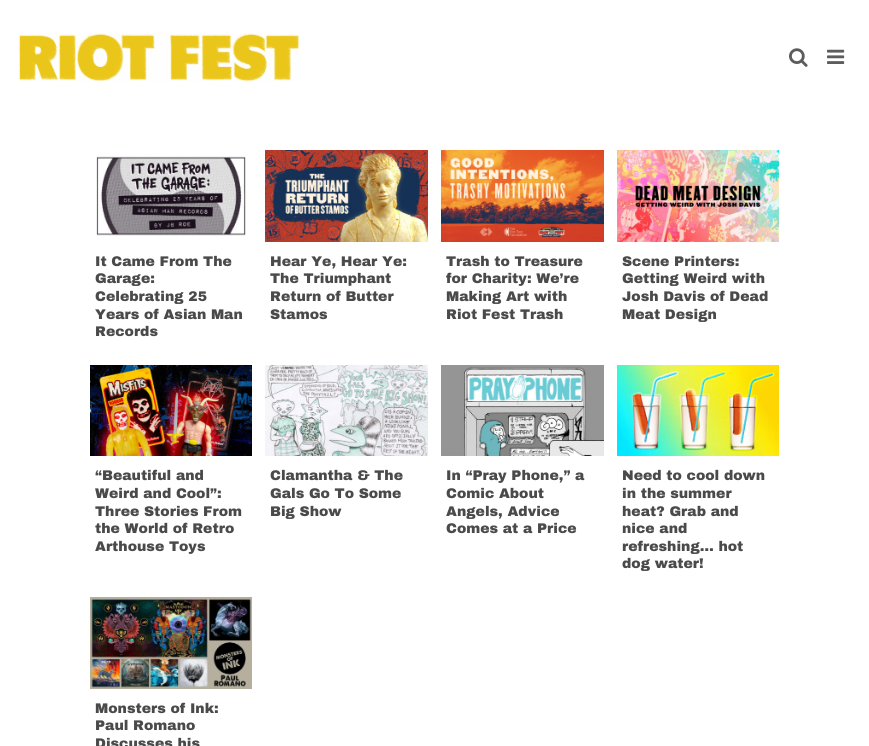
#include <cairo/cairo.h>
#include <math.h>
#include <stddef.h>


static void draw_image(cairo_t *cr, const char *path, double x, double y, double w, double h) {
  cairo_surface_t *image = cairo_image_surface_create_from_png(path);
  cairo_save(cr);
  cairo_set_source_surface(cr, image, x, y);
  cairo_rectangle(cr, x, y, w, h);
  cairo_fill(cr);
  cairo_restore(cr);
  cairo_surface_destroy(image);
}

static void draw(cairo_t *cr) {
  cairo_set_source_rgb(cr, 1, 1, 1);
  cairo_paint(cr);
  draw_image(cr, "images/1.png", 18, 33, 282, 49);
  draw_image(cr, "images/2.png", 789, 48, 19, 19);
  draw_image(cr, "images/3.png", 827, 49, 18, 15);
  draw_image(cr, "images/4.png", 96, 156, 151, 80);
  draw_image(cr, "images/5.png", 265, 150, 163, 92);
  draw_image(cr, "images/6.png", 441, 150, 163, 92);
  draw_image(cr, "images/7.png", 617, 150, 162, 92);
  draw_image(cr, "images/8.png", 90, 365, 162, 91);
  draw_image(cr, "images/9.png", 265, 365, 163, 91);
  draw_image(cr, "images/10.png", 441, 365, 163, 91);
  draw_image(cr, "images/11.png", 617, 365, 162, 91);
  draw_image(cr, "images/12.png", 90, 597, 162, 92);
  cairo_select_font_face(cr, "Archivo Black Black", CAIRO_FONT_SLANT_NORMAL, CAIRO_FONT_WEIGHT_NORMAL);
  cairo_set_font_size(cr, 14);
  cairo_set_source_rgb(cr, 74 / 255.0, 74 / 255.0, 74 / 255.0);
  cairo_move_to(cr, 95, 266);
  cairo_show_text(cr, "It Came From The");
  cairo_move_to(cr, 95, 283);
  cairo_show_text(cr, "Garage:");
  cairo_move_to(cr, 95, 301);
  cairo_show_text(cr, "Celebrating 25");
  cairo_move_to(cr, 95, 319);
  cairo_show_text(cr, "Years of Asian Man");
  cairo_move_to(cr, 95, 336);
  cairo_show_text(cr, "Records");
  cairo_move_to(cr, 270, 266);
  cairo_show_text(cr, "Hear Ye, Hear Ye:");
  cairo_move_to(cr, 270, 283);
  cairo_show_text(cr, "The Triumphant");
  cairo_move_to(cr, 270, 301);
  cairo_show_text(cr, "Return of Butter");
  cairo_move_to(cr, 270, 319);
  cairo_show_text(cr, "Stamos");
  cairo_move_to(cr, 446, 266);
  cairo_show_text(cr, "Trash to Treasure");
  cairo_move_to(cr, 446, 283);
  cairo_show_text(cr, "for Charity: We’re");
  cairo_move_to(cr, 446, 301);
  cairo_show_text(cr, "Making Art with");
  cairo_move_to(cr, 446, 319);
  cairo_show_text(cr, "Riot Fest Trash");
  cairo_move_to(cr, 622, 266);
  cairo_show_text(cr, "Scene Printers:");
  cairo_move_to(cr, 622, 283);
  cairo_show_text(cr, "Getting Weird with");
  cairo_move_to(cr, 622, 301);
  cairo_show_text(cr, "Josh Davis of Dead");
  cairo_move_to(cr, 622, 319);
  cairo_show_text(cr, "Meat Design");
  cairo_move_to(cr, 95, 480);
  cairo_show_text(cr, "“Beautiful and");
  cairo_move_to(cr, 95, 498);
  cairo_show_text(cr, "Weird and Cool”:");
  cairo_move_to(cr, 95, 516);
  cairo_show_text(cr, "Three Stories From");
  cairo_move_to(cr, 95, 533);
  cairo_show_text(cr, "the World of Retro");
  cairo_move_to(cr, 95, 551);
  cairo_show_text(cr, "Arthouse Toys");
  cairo_move_to(cr, 270, 480);
  cairo_show_text(cr, "Clamantha & The");
  cairo_move_to(cr, 270, 498);
  cairo_show_text(cr, "Gals Go To Some");
  cairo_move_to(cr, 270, 516);
  cairo_show_text(cr, "Big Show");
  cairo_move_to(cr, 446, 480);
  cairo_show_text(cr, "In “Pray Phone,” a");
  cairo_move_to(cr, 446, 498);
  cairo_show_text(cr, "Comic About");
  cairo_move_to(cr, 446, 516);
  cairo_show_text(cr, "Angels, Advice");
  cairo_move_to(cr, 446, 533);
  cairo_show_text(cr, "Comes at a Price");
  cairo_move_to(cr, 622, 480);
  cairo_show_text(cr, "Need to cool down");
  cairo_move_to(cr, 622, 498);
  cairo_show_text(cr, "in the summer");
  cairo_move_to(cr, 622, 516);
  cairo_show_text(cr, "heat? Grab and");
  cairo_move_to(cr, 622, 533);
  cairo_show_text(cr, "nice and");
  cairo_move_to(cr, 622, 551);
  cairo_show_text(cr, "refreshing… hot");
  cairo_move_to(cr, 622, 568);
  cairo_show_text(cr, "dog water!");
  cairo_move_to(cr, 95, 713);
  cairo_show_text(cr, "Monsters of Ink:");
  cairo_move_to(cr, 95, 730);
  cairo_show_text(cr, "Paul Romano");
  cairo_move_to(cr, 95, 748);
  cairo_show_text(cr, "Discusses his");
}

int main(void) {
  cairo_surface_t *surface = cairo_image_surface_create(CAIRO_FORMAT_RGB24, 869, 746);
  cairo_t *cr = cairo_create(surface);
  cairo_font_options_t *options = cairo_font_options_create();
  cairo_font_options_set_hint_metrics(options, CAIRO_HINT_METRICS_OFF);
  cairo_font_options_set_hint_style(options, CAIRO_HINT_STYLE_NONE);
  cairo_set_font_options(cr, options);
  cairo_set_miter_limit(cr, 4);
  draw(cr);
  cairo_surface_write_to_png(surface, "out.png");
  cairo_font_options_destroy(options);
  cairo_destroy(cr);
  cairo_surface_destroy(surface);
  return 0;
}
